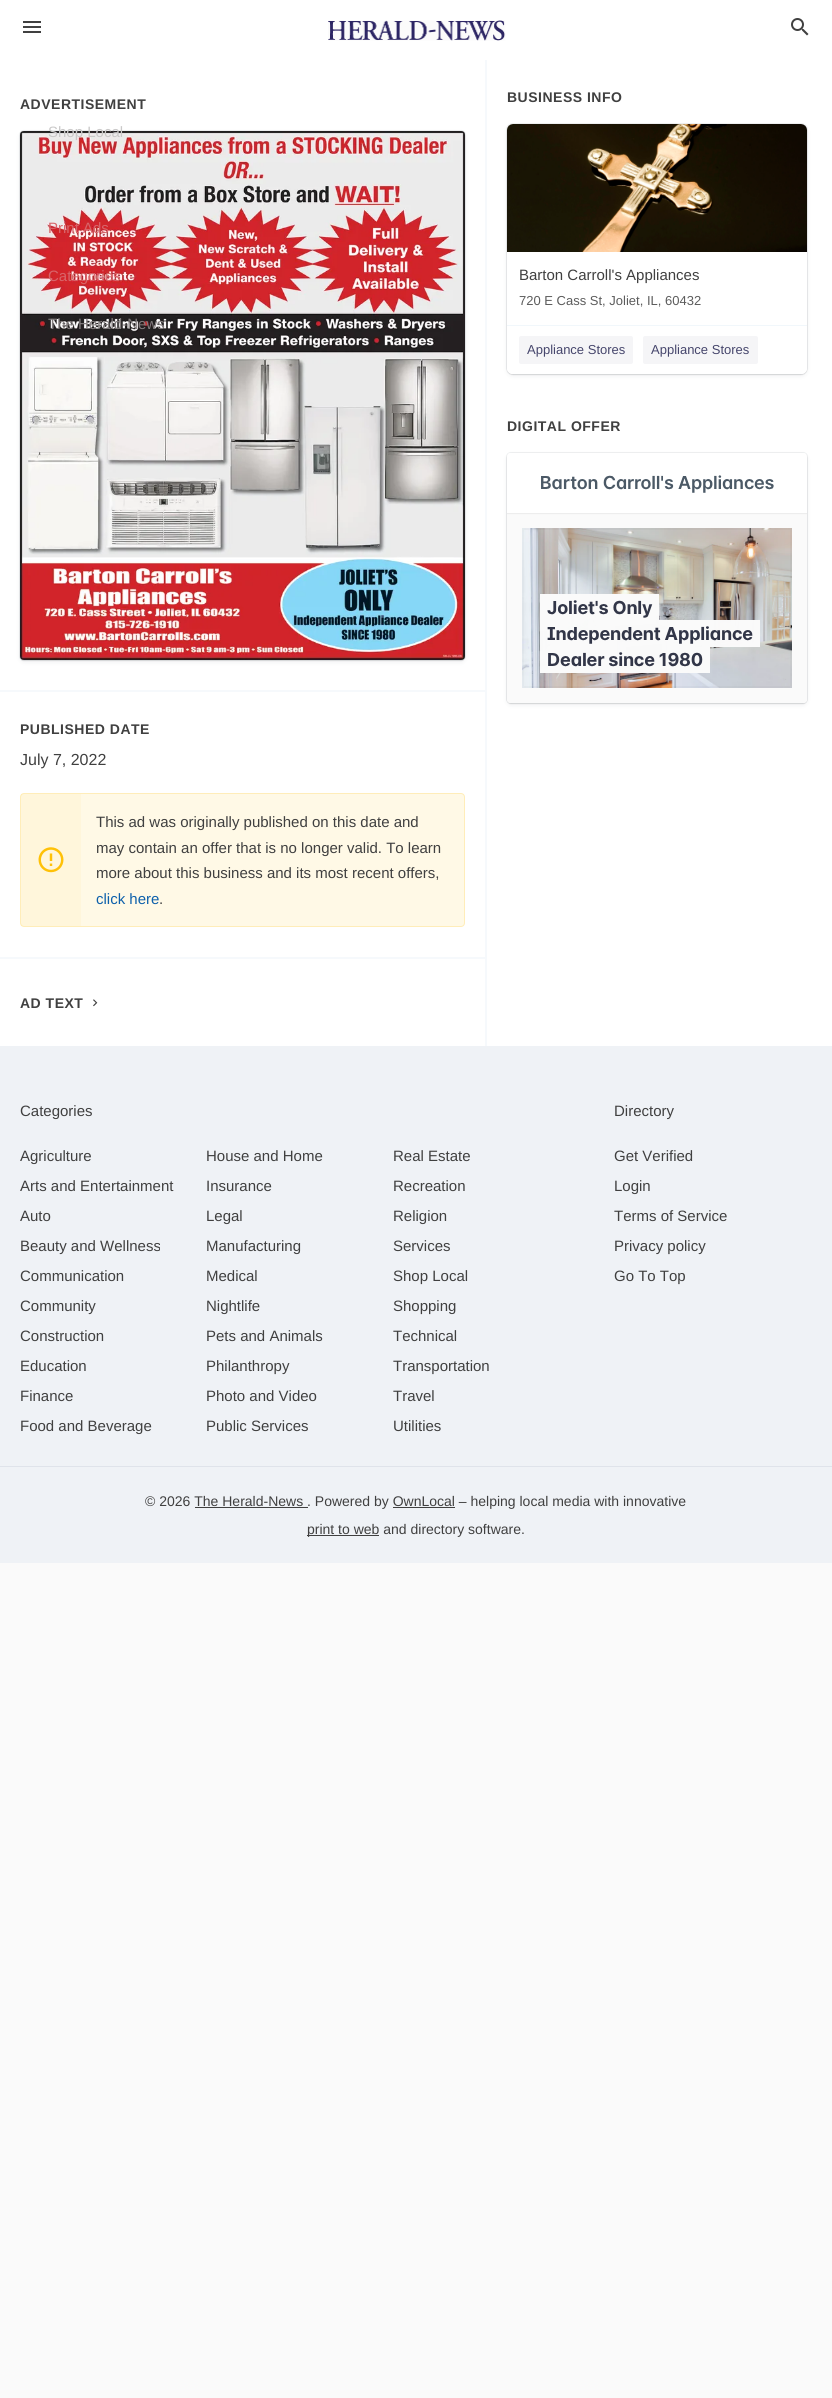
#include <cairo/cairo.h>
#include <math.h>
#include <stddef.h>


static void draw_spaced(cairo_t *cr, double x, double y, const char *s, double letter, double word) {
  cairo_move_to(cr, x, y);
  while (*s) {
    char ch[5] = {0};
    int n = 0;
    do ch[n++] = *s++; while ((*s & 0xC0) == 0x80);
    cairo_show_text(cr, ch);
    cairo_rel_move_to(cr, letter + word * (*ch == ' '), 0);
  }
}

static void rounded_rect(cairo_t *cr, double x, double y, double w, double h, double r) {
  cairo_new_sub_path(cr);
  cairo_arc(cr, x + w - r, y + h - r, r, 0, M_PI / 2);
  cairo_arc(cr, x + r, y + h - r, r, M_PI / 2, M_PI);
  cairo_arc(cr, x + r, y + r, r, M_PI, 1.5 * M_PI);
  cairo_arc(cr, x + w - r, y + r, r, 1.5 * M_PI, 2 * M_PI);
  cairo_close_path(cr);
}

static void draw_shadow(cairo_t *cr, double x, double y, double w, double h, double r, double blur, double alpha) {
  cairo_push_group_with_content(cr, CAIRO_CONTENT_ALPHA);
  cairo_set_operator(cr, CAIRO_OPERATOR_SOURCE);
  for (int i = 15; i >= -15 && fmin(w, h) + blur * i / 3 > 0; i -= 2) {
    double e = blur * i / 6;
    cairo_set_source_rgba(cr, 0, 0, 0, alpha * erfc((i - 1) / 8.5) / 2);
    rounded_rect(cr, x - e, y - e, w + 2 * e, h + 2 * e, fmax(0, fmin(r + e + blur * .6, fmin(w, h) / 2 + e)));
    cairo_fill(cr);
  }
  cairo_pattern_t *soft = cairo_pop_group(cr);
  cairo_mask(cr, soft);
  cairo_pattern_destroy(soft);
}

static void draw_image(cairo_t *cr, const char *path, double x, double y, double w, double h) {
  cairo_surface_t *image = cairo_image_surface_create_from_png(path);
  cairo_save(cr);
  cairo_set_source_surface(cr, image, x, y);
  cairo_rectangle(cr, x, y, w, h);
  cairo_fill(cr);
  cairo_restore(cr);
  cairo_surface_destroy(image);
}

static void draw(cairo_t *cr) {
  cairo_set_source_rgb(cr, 250 / 255.0, 250 / 255.0, 250 / 255.0);
  cairo_paint(cr);
  cairo_set_source_rgb(cr, 1, 1, 1);
  cairo_rectangle(cr, 0, 0, 832, 1046);
  cairo_fill(cr);
  cairo_set_source_rgb(cr, 246 / 255.0, 249 / 255.0, 252 / 255.0);
  cairo_rectangle(cr, 485, 60, 2, 986);
  cairo_fill(cr);
  cairo_rectangle(cr, 0, 690, 485, 2);
  cairo_fill(cr);
  cairo_set_source_rgb(cr, 60 / 255.0, 66 / 255.0, 87 / 255.0);
  draw_shadow(cr, 20, 133, 445, 529, 4, 2.5, 0.08);
  rounded_rect(cr, 19.5, 130.5, 446, 530, 4.5);
  cairo_set_source_rgba(cr, 60 / 255.0, 66 / 255.0, 87 / 255.0, 0.08);
  cairo_set_line_width(cr, 1);
  cairo_stroke(cr);
  cairo_set_source_rgb(cr, 0, 0, 0);
  draw_shadow(cr, 20, 132, 445, 529, 4, 0.5, 0.08);
  draw_image(cr, "images/1.png", 20, 131, 445, 529);
  cairo_set_source_rgb(cr, 246 / 255.0, 249 / 255.0, 252 / 255.0);
  cairo_rectangle(cr, 0, 957, 485, 2);
  cairo_fill(cr);
  cairo_set_source_rgb(cr, 1, 249 / 255.0, 230 / 255.0);
  rounded_rect(cr, 20, 793, 445, 134, 4);
  cairo_fill(cr);
  rounded_rect(cr, 20.5, 793.5, 444, 133, 3.5);
  cairo_set_source_rgba(cr, 1, 193 / 255.0, 7 / 255.0, 0.2);
  cairo_stroke(cr);
  draw_image(cr, "images/2.png", 38, 847, 26, 26);
  cairo_set_source_rgba(cr, 1, 193 / 255.0, 7 / 255.0, 0.05);
  cairo_rectangle(cr, 21, 794, 60, 132);
  cairo_fill(cr);
  draw_image(cr, "images/3.png", 93, 999, 5, 8);
  cairo_set_source_rgb(cr, 60 / 255.0, 66 / 255.0, 87 / 255.0);
  draw_shadow(cr, 507, 126, 300, 250, 6, 2.5, 0.08);
  rounded_rect(cr, 506.5, 123.5, 301, 251, 6.5);
  cairo_set_source_rgba(cr, 60 / 255.0, 66 / 255.0, 87 / 255.0, 0.08);
  cairo_stroke(cr);
  cairo_set_source_rgb(cr, 0, 0, 0);
  draw_shadow(cr, 507, 125, 300, 250, 6, 0.5, 0.08);
  cairo_set_source_rgb(cr, 1, 1, 1);
  rounded_rect(cr, 507, 124, 300, 250, 6);
  cairo_fill(cr);
  draw_image(cr, "images/4.png", 507, 124, 300, 128);
  cairo_new_path(cr);
  cairo_move_to(cr, 507, 325);
  cairo_line_to(cr, 807, 325);
  cairo_line_to(cr, 807, 368);
  cairo_curve_to(cr, 807, 371.5, 804.5, 374, 801, 374);
  cairo_line_to(cr, 513, 374);
  cairo_curve_to(cr, 509.5, 374, 507, 371.5, 507, 368);
  cairo_close_path(cr);
  cairo_fill(cr);
  cairo_set_source_rgb(cr, 241 / 255.0, 247 / 255.0, 251 / 255.0);
  cairo_rectangle(cr, 507, 325, 300, 1);
  cairo_fill(cr);
  cairo_set_source_rgb(cr, 245 / 255.0, 245 / 255.0, 247 / 255.0);
  rounded_rect(cr, 519, 336, 114, 28, 2);
  cairo_fill(cr);
  rounded_rect(cr, 643, 336, 115, 28, 2);
  cairo_fill(cr);
  cairo_set_source_rgb(cr, 60 / 255.0, 66 / 255.0, 87 / 255.0);
  draw_shadow(cr, 507, 455, 300, 250, 4, 2.5, 0.08);
  rounded_rect(cr, 506.5, 452.5, 301, 251, 4.5);
  cairo_set_source_rgba(cr, 60 / 255.0, 66 / 255.0, 87 / 255.0, 0.08);
  cairo_stroke(cr);
  cairo_set_source_rgb(cr, 0, 0, 0);
  draw_shadow(cr, 507, 454, 300, 250, 4, 0.5, 0.08);
  draw_image(cr, "images/5.png", 507, 453, 300, 250);
  draw_image(cr, "images/6.png", 23, 21, 18, 12);
  draw_image(cr, "images/7.png", 328, 20, 178, 21);
  draw_image(cr, "images/8.png", 791, 18, 18, 18);
  cairo_set_source_rgb(cr, 239 / 255.0, 242 / 255.0, 246 / 255.0);
  cairo_rectangle(cr, 0, 1046, 832, 517);
  cairo_fill(cr);
  cairo_set_source_rgb(cr, 223 / 255.0, 227 / 255.0, 234 / 255.0);
  cairo_rectangle(cr, 0, 1466, 832, 1);
  cairo_fill(cr);
  cairo_set_source_rgb(cr, 64 / 255.0, 64 / 255.0, 64 / 255.0);
  cairo_rectangle(cr, 195, 1507, 113, 1);
  cairo_fill(cr);
  cairo_rectangle(cr, 393, 1507, 62, 1);
  cairo_fill(cr);
  cairo_rectangle(cr, 307, 1535, 72, 1);
  cairo_fill(cr);
  cairo_select_font_face(cr, "Liberation Sans", CAIRO_FONT_SLANT_NORMAL, CAIRO_FONT_WEIGHT_BOLD);
  cairo_set_font_size(cr, 14);
  draw_spaced(cr, 20, 109, "ADVERTISEMENT", 0.5, 0);
  draw_spaced(cr, 20, 734, "PUBLISHED DATE", 0.5, 0);
  cairo_select_font_face(cr, "Liberation Sans", CAIRO_FONT_SLANT_NORMAL, CAIRO_FONT_WEIGHT_NORMAL);
  cairo_set_font_size(cr, 16);
  cairo_move_to(cr, 20, 765);
  cairo_show_text(cr, "July 7, 2022");
  cairo_set_font_size(cr, 15);
  cairo_move_to(cr, 96, 827);
  cairo_show_text(cr, "This ad was originally published on this date and");
  cairo_move_to(cr, 96, 853);
  cairo_show_text(cr, "may contain an offer that is no longer valid. To learn");
  cairo_move_to(cr, 96, 878);
  cairo_show_text(cr, "more about this business and its most recent offers,");
  cairo_set_source_rgb(cr, 13 / 255.0, 96 / 255.0, 171 / 255.0);
  cairo_move_to(cr, 96, 904);
  cairo_show_text(cr, "click here");
  cairo_set_source_rgb(cr, 64 / 255.0, 64 / 255.0, 64 / 255.0);
  cairo_move_to(cr, 159, 904);
  cairo_show_text(cr, ".");
  cairo_select_font_face(cr, "Liberation Sans", CAIRO_FONT_SLANT_NORMAL, CAIRO_FONT_WEIGHT_BOLD);
  cairo_set_font_size(cr, 14);
  draw_spaced(cr, 20, 1008, "AD TEXT", 0.5, 0);
  draw_spaced(cr, 507, 102, "BUSINESS INFO", 0.5, 0);
  cairo_select_font_face(cr, "Liberation Sans", CAIRO_FONT_SLANT_NORMAL, CAIRO_FONT_WEIGHT_NORMAL);
  cairo_set_font_size(cr, 15);
  cairo_move_to(cr, 519, 280);
  cairo_show_text(cr, "Barton Carroll's Appliances");
  cairo_set_font_size(cr, 13);
  cairo_set_source_rgb(cr, 92 / 255.0, 92 / 255.0, 92 / 255.0);
  cairo_move_to(cr, 519, 305);
  cairo_show_text(cr, "720 E Cass St, Joliet, IL, 60432");
  cairo_set_source_rgb(cr, 70 / 255.0, 70 / 255.0, 108 / 255.0);
  cairo_move_to(cr, 527, 354);
  cairo_show_text(cr, "Appliance Stores");
  cairo_move_to(cr, 651, 354);
  cairo_show_text(cr, "Appliance Stores");
  cairo_select_font_face(cr, "Liberation Sans", CAIRO_FONT_SLANT_NORMAL, CAIRO_FONT_WEIGHT_BOLD);
  cairo_set_font_size(cr, 14);
  cairo_set_source_rgb(cr, 64 / 255.0, 64 / 255.0, 64 / 255.0);
  draw_spaced(cr, 507, 431, "DIGITAL OFFER", 0.5, 0);
  cairo_select_font_face(cr, "Liberation Sans", CAIRO_FONT_SLANT_NORMAL, CAIRO_FONT_WEIGHT_NORMAL);
  cairo_set_font_size(cr, 15);
  cairo_set_source_rgb(cr, 202 / 255.0, 201 / 255.0, 201 / 255.0);
  cairo_move_to(cr, 48, 137);
  cairo_show_text(cr, "Shop Local");
  cairo_set_source_rgb(cr, 216 / 255.0, 100 / 255.0, 105 / 255.0);
  cairo_move_to(cr, 48, 233);
  cairo_show_text(cr, "Print Ads");
  cairo_move_to(cr, 48, 281);
  cairo_show_text(cr, "Categories");
  cairo_set_source_rgb(cr, 130 / 255.0, 124 / 255.0, 125 / 255.0);
  cairo_move_to(cr, 48, 329);
  cairo_show_text(cr, "The Herald-News");
  cairo_set_source_rgb(cr, 64 / 255.0, 64 / 255.0, 64 / 255.0);
  cairo_move_to(cr, 20, 1116);
  cairo_show_text(cr, "Categories");
  cairo_move_to(cr, 20, 1161);
  cairo_show_text(cr, "Agriculture");
  cairo_move_to(cr, 206, 1161);
  cairo_show_text(cr, "House and Home");
  cairo_move_to(cr, 393, 1161);
  cairo_show_text(cr, "Real Estate");
  cairo_move_to(cr, 20, 1191);
  cairo_show_text(cr, "Arts and Entertainment");
  cairo_move_to(cr, 206, 1191);
  cairo_show_text(cr, "Insurance");
  cairo_move_to(cr, 393, 1191);
  cairo_show_text(cr, "Recreation");
  cairo_move_to(cr, 20, 1221);
  cairo_show_text(cr, "Auto");
  cairo_move_to(cr, 206, 1221);
  cairo_show_text(cr, "Legal");
  cairo_move_to(cr, 393, 1221);
  cairo_show_text(cr, "Religion");
  cairo_move_to(cr, 20, 1251);
  cairo_show_text(cr, "Beauty and Wellness");
  cairo_move_to(cr, 206, 1251);
  cairo_show_text(cr, "Manufacturing");
  cairo_move_to(cr, 393, 1251);
  cairo_show_text(cr, "Services");
  cairo_move_to(cr, 20, 1281);
  cairo_show_text(cr, "Communication");
  cairo_move_to(cr, 206, 1281);
  cairo_show_text(cr, "Medical");
  cairo_move_to(cr, 393, 1281);
  cairo_show_text(cr, "Shop Local");
  cairo_move_to(cr, 20, 1311);
  cairo_show_text(cr, "Community");
  cairo_move_to(cr, 206, 1311);
  cairo_show_text(cr, "Nightlife");
  cairo_move_to(cr, 393, 1311);
  cairo_show_text(cr, "Shopping");
  cairo_move_to(cr, 20, 1341);
  cairo_show_text(cr, "Construction");
  cairo_move_to(cr, 206, 1341);
  cairo_show_text(cr, "Pets and Animals");
  cairo_move_to(cr, 393, 1341);
  cairo_show_text(cr, "Technical");
  cairo_move_to(cr, 20, 1371);
  cairo_show_text(cr, "Education");
  cairo_move_to(cr, 206, 1371);
  cairo_show_text(cr, "Philanthropy");
  cairo_move_to(cr, 393, 1371);
  cairo_show_text(cr, "Transportation");
  cairo_move_to(cr, 20, 1401);
  cairo_show_text(cr, "Finance");
  cairo_move_to(cr, 206, 1401);
  cairo_show_text(cr, "Photo and Video");
  cairo_move_to(cr, 393, 1401);
  cairo_show_text(cr, "Travel");
  cairo_move_to(cr, 20, 1431);
  cairo_show_text(cr, "Food and Beverage");
  cairo_move_to(cr, 206, 1431);
  cairo_show_text(cr, "Public Services");
  cairo_move_to(cr, 393, 1431);
  cairo_show_text(cr, "Utilities");
  cairo_move_to(cr, 614, 1116);
  cairo_show_text(cr, "Directory");
  cairo_move_to(cr, 614, 1161);
  cairo_show_text(cr, "Get Verified");
  cairo_move_to(cr, 614, 1191);
  cairo_show_text(cr, "Login");
  cairo_move_to(cr, 614, 1221);
  cairo_show_text(cr, "Terms of Service");
  cairo_move_to(cr, 614, 1251);
  cairo_show_text(cr, "Privacy policy");
  cairo_move_to(cr, 614, 1281);
  cairo_show_text(cr, "Go To Top");
  cairo_set_font_size(cr, 14);
  cairo_move_to(cr, 145, 1506);
  cairo_show_text(cr, "© 2026 The Herald-News . Powered by OwnLocal – helping local media with innovative");
  cairo_move_to(cr, 307, 1534);
  cairo_show_text(cr, "print to web and directory software.");
}

int main(void) {
  cairo_surface_t *surface = cairo_image_surface_create(CAIRO_FORMAT_RGB24, 832, 2398);
  cairo_t *cr = cairo_create(surface);
  cairo_font_options_t *options = cairo_font_options_create();
  cairo_font_options_set_hint_metrics(options, CAIRO_HINT_METRICS_OFF);
  cairo_font_options_set_hint_style(options, CAIRO_HINT_STYLE_NONE);
  cairo_set_font_options(cr, options);
  cairo_set_miter_limit(cr, 4);
  draw(cr);
  cairo_surface_write_to_png(surface, "out.png");
  cairo_font_options_destroy(options);
  cairo_destroy(cr);
  cairo_surface_destroy(surface);
  return 0;
}
